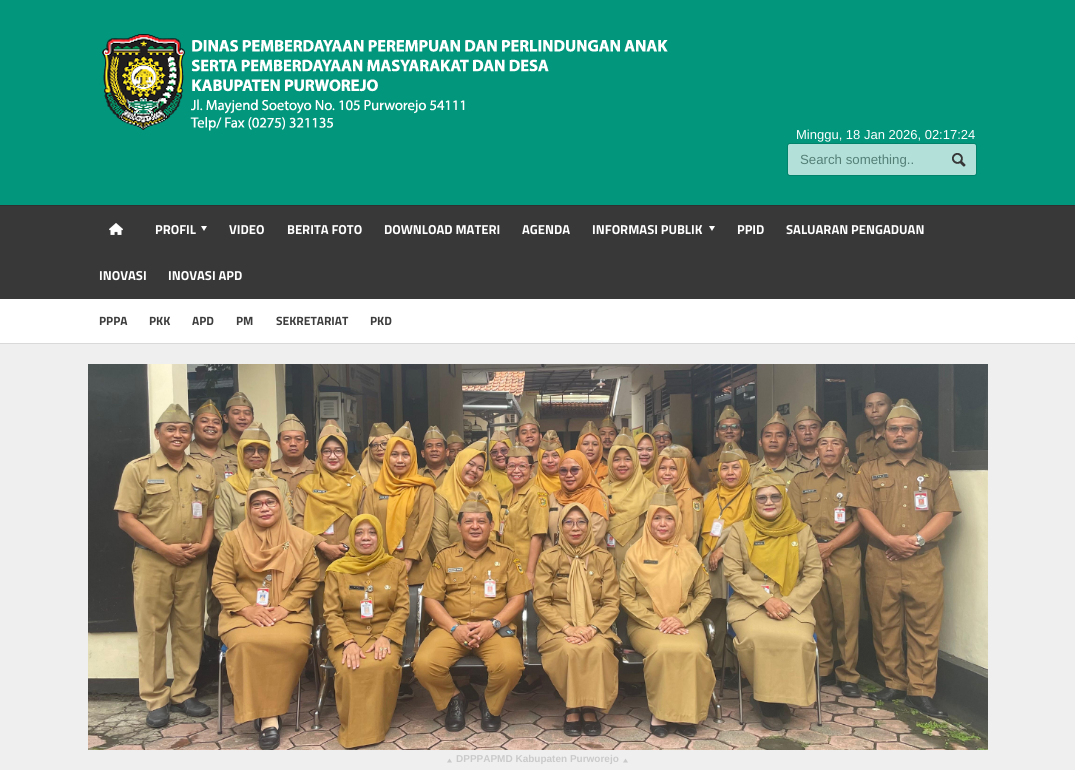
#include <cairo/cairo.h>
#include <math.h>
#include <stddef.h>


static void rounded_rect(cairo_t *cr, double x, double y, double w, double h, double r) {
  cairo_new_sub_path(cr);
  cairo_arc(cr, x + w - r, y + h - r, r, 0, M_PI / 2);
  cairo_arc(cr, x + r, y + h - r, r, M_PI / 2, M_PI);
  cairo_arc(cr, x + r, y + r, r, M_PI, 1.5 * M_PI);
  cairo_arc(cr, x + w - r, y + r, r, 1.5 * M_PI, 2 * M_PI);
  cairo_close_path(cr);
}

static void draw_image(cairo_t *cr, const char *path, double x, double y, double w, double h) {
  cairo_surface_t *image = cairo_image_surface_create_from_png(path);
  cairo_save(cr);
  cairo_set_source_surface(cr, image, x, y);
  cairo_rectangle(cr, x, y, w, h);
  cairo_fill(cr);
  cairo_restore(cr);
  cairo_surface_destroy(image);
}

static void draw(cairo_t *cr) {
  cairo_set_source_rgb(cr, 240 / 255.0, 239 / 255.0, 239 / 255.0);
  cairo_paint(cr);
  cairo_set_source_rgb(cr, 2 / 255.0, 150 / 255.0, 124 / 255.0);
  cairo_rectangle(cr, 0, 0, 1075, 205);
  cairo_fill(cr);
  draw_image(cr, "images/1.png", 102, 34, 566, 97);
  rounded_rect(cr, 787.5, 143.5, 189, 32, 2.5);
  cairo_set_source_rgb(cr, 2 / 255.0, 129 / 255.0, 107 / 255.0);
  cairo_set_line_width(cr, 1);
  cairo_stroke(cr);
  cairo_set_source_rgb(cr, 179 / 255.0, 224 / 255.0, 216 / 255.0);
  rounded_rect(cr, 788, 144, 188, 31, 2);
  cairo_fill(cr);
  draw_image(cr, "images/2.png", 952, 153, 14, 14);
  cairo_set_source_rgb(cr, 56 / 255.0, 56 / 255.0, 56 / 255.0);
  cairo_rectangle(cr, 0, 206, 1075, 93);
  cairo_fill(cr);
  cairo_set_source_rgb(cr, 48 / 255.0, 48 / 255.0, 48 / 255.0);
  cairo_rectangle(cr, 0, 205, 1075, 1);
  cairo_fill(cr);
  draw_image(cr, "images/3.png", 109, 223, 14, 12);
  cairo_set_source_rgb(cr, 1, 1, 1);
  cairo_new_path(cr);
  cairo_move_to(cr, 207, 226);
  cairo_line_to(cr, 204, 231);
  cairo_line_to(cr, 201, 226);
  cairo_close_path(cr);
  cairo_fill(cr);
  cairo_new_path(cr);
  cairo_move_to(cr, 715, 226);
  cairo_line_to(cr, 712, 231);
  cairo_line_to(cr, 709, 226);
  cairo_close_path(cr);
  cairo_fill(cr);
  cairo_rectangle(cr, 0, 299, 1075, 44);
  cairo_fill(cr);
  cairo_set_source_rgb(cr, 217 / 255.0, 217 / 255.0, 217 / 255.0);
  cairo_rectangle(cr, 0, 343, 1075, 1);
  cairo_fill(cr);
  draw_image(cr, "images/4.png", 88, 364, 900, 386);
  cairo_set_source_rgb(cr, 202 / 255.0, 202 / 255.0, 202 / 255.0);
  cairo_new_path(cr);
  cairo_move_to(cr, 447, 762.5);
  cairo_line_to(cr, 449.5, 758.5);
  cairo_line_to(cr, 452, 762.5);
  cairo_close_path(cr);
  cairo_fill(cr);
  cairo_new_path(cr);
  cairo_move_to(cr, 623, 762.5);
  cairo_line_to(cr, 625.5, 758.5);
  cairo_line_to(cr, 628, 762.5);
  cairo_close_path(cr);
  cairo_fill(cr);
  cairo_select_font_face(cr, "Liberation Sans", CAIRO_FONT_SLANT_NORMAL, CAIRO_FONT_WEIGHT_NORMAL);
  cairo_set_font_size(cr, 13);
  cairo_set_source_rgb(cr, 1, 1, 1);
  cairo_move_to(cr, 796, 139);
  cairo_show_text(cr, "Minggu, 18 Jan 2026, 02:17:24");
  cairo_set_font_size(cr, 13.25);
  cairo_set_source_rgb(cr, 83 / 255.0, 127 / 255.0, 119 / 255.0);
  cairo_move_to(cr, 800, 164);
  cairo_show_text(cr, "Search something..");
  cairo_select_font_face(cr, "Titillium Web", CAIRO_FONT_SLANT_NORMAL, CAIRO_FONT_WEIGHT_BOLD);
  cairo_set_font_size(cr, 13);
  cairo_set_source_rgb(cr, 1, 1, 1);
  cairo_move_to(cr, 155, 234);
  cairo_show_text(cr, "PROFIL");
  cairo_move_to(cr, 229, 234);
  cairo_show_text(cr, "VIDEO");
  cairo_move_to(cr, 287, 234);
  cairo_show_text(cr, "BERITA FOTO");
  cairo_move_to(cr, 384, 234);
  cairo_show_text(cr, "DOWNLOAD MATERI");
  cairo_move_to(cr, 522, 234);
  cairo_show_text(cr, "AGENDA");
  cairo_move_to(cr, 592, 234);
  cairo_show_text(cr, "INFORMASI PUBLIK");
  cairo_move_to(cr, 737, 234);
  cairo_show_text(cr, "PPID");
  cairo_move_to(cr, 786, 234);
  cairo_show_text(cr, "SALUARAN PENGADUAN");
  cairo_move_to(cr, 99, 280);
  cairo_show_text(cr, "INOVASI");
  cairo_move_to(cr, 168, 280);
  cairo_show_text(cr, "INOVASI APD");
  cairo_set_font_size(cr, 12);
  cairo_set_source_rgb(cr, 61 / 255.0, 61 / 255.0, 61 / 255.0);
  cairo_move_to(cr, 99, 325);
  cairo_show_text(cr, "PPPA");
  cairo_move_to(cr, 149, 325);
  cairo_show_text(cr, "PKK");
  cairo_move_to(cr, 192, 325);
  cairo_show_text(cr, "APD");
  cairo_move_to(cr, 236, 325);
  cairo_show_text(cr, "PM");
  cairo_move_to(cr, 276, 325);
  cairo_show_text(cr, "SEKRETARIAT");
  cairo_move_to(cr, 370, 325);
  cairo_show_text(cr, "PKD");
  cairo_select_font_face(cr, "Liberation Sans", CAIRO_FONT_SLANT_NORMAL, CAIRO_FONT_WEIGHT_BOLD);
  cairo_set_font_size(cr, 10);
  cairo_set_source_rgb(cr, 202 / 255.0, 202 / 255.0, 202 / 255.0);
  cairo_move_to(cr, 456, 762);
  cairo_show_text(cr, "DPPPAPMD Kabupaten Purworejo");
}

int main(void) {
  cairo_surface_t *surface = cairo_image_surface_create(CAIRO_FORMAT_RGB24, 1075, 770);
  cairo_t *cr = cairo_create(surface);
  cairo_font_options_t *options = cairo_font_options_create();
  cairo_font_options_set_hint_metrics(options, CAIRO_HINT_METRICS_OFF);
  cairo_font_options_set_hint_style(options, CAIRO_HINT_STYLE_NONE);
  cairo_set_font_options(cr, options);
  cairo_set_miter_limit(cr, 4);
  draw(cr);
  cairo_surface_write_to_png(surface, "out.png");
  cairo_font_options_destroy(options);
  cairo_destroy(cr);
  cairo_surface_destroy(surface);
  return 0;
}
